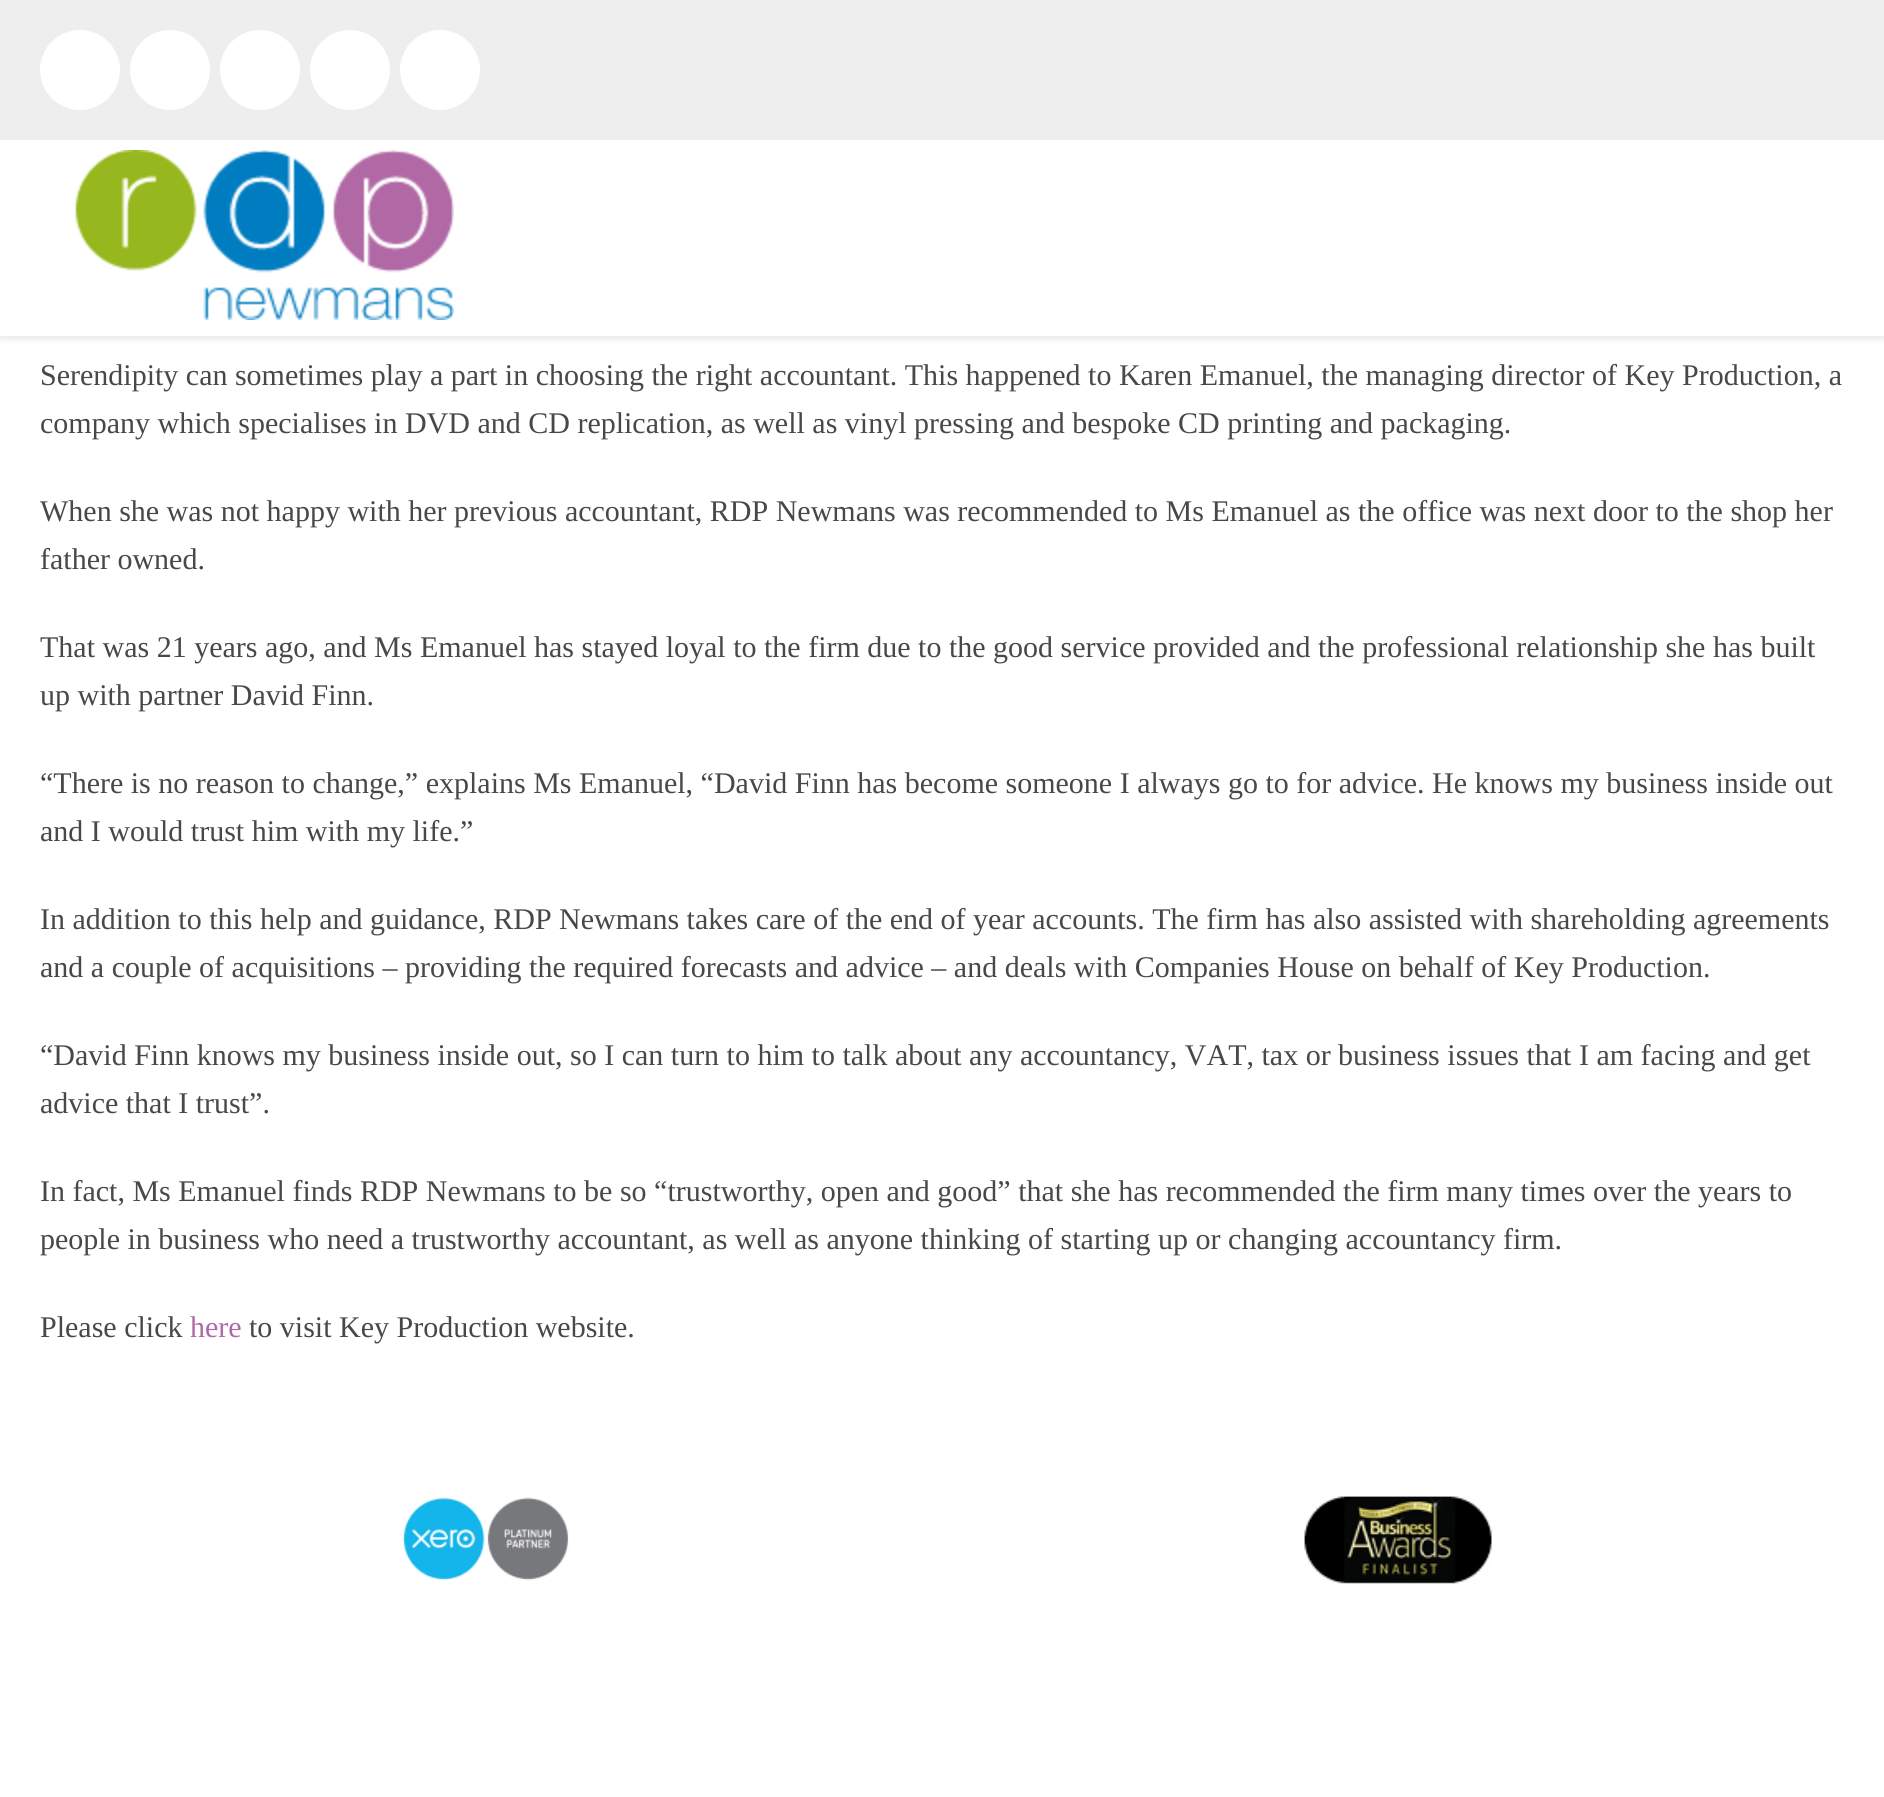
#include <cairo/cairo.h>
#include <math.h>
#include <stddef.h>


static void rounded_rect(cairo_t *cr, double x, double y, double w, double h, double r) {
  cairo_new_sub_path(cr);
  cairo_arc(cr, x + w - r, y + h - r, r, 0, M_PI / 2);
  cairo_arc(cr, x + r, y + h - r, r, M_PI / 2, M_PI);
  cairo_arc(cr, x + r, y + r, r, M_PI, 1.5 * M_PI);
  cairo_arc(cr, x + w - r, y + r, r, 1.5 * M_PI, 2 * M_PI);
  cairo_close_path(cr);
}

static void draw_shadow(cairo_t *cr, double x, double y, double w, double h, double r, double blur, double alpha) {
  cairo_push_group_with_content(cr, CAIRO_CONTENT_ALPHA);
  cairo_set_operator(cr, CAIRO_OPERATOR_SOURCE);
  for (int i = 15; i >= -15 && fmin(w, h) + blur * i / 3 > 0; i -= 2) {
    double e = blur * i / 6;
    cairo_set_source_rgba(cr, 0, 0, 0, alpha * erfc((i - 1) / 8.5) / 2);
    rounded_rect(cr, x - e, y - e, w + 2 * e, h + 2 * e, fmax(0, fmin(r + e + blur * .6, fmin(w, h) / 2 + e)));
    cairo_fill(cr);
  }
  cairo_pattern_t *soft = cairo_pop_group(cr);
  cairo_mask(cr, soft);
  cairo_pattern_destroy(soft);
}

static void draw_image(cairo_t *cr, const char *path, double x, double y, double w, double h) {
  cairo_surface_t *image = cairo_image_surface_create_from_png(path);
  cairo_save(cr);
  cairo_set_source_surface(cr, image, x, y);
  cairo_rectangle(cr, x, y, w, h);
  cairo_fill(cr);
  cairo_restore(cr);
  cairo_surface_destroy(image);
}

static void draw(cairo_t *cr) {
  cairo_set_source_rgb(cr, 1, 1, 1);
  cairo_paint(cr);
  cairo_set_source_rgb(cr, 0, 0, 0);
  draw_shadow(cr, 0, 0, 1884, 336, 0, 5, 0.16);
  cairo_set_source_rgb(cr, 238 / 255.0, 238 / 255.0, 238 / 255.0);
  cairo_rectangle(cr, 0, 0, 1884, 140);
  cairo_fill(cr);
  cairo_set_source_rgb(cr, 1, 1, 1);
  cairo_arc(cr, 80, 70, 40, 0, 2 * M_PI);
  cairo_fill(cr);
  cairo_arc(cr, 170, 70, 40, 0, 2 * M_PI);
  cairo_fill(cr);
  cairo_arc(cr, 260, 70, 40, 0, 2 * M_PI);
  cairo_fill(cr);
  cairo_arc(cr, 350, 70, 40, 0, 2 * M_PI);
  cairo_fill(cr);
  cairo_arc(cr, 440, 70, 40, 0, 2 * M_PI);
  cairo_fill(cr);
  cairo_rectangle(cr, 0, 140, 1884, 196);
  cairo_fill(cr);
  draw_image(cr, "images/1.png", 75, 150, 379, 170);
  draw_image(cr, "images/2.png", 402, 1497, 167, 84);
  draw_image(cr, "images/3.png", 1304, 1496, 188, 88);
  cairo_select_font_face(cr, "Liberation Serif", CAIRO_FONT_SLANT_NORMAL, CAIRO_FONT_WEIGHT_NORMAL);
  cairo_set_font_size(cr, 30);
  cairo_set_source_rgb(cr, 72 / 255.0, 72 / 255.0, 72 / 255.0);
  cairo_move_to(cr, 40, 385);
  cairo_show_text(cr, "Serendipity can sometimes play a part in choosing the right accountant. This happened to Karen Emanuel, the managing director of Key Production, a");
  cairo_move_to(cr, 40, 433);
  cairo_show_text(cr, "company which specialises in DVD and CD replication, as well as vinyl pressing and bespoke CD printing and packaging.");
  cairo_move_to(cr, 40, 521);
  cairo_show_text(cr, "When she was not happy with her previous accountant, RDP Newmans was recommended to Ms Emanuel as the office was next door to the shop her");
  cairo_move_to(cr, 40, 569);
  cairo_show_text(cr, "father owned.");
  cairo_move_to(cr, 40, 657);
  cairo_show_text(cr, "That was 21 years ago, and Ms Emanuel has stayed loyal to the firm due to the good service provided and the professional relationship she has built");
  cairo_move_to(cr, 40, 705);
  cairo_show_text(cr, "up with partner David Finn.");
  cairo_move_to(cr, 40, 793);
  cairo_show_text(cr, "“There is no reason to change,” explains Ms Emanuel, “David Finn has become someone I always go to for advice. He knows my business inside out");
  cairo_move_to(cr, 40, 841);
  cairo_show_text(cr, "and I would trust him with my life.”");
  cairo_move_to(cr, 40, 929);
  cairo_show_text(cr, "In addition to this help and guidance, RDP Newmans takes care of the end of year accounts. The firm has also assisted with shareholding agreements");
  cairo_move_to(cr, 40, 977);
  cairo_show_text(cr, "and a couple of acquisitions – providing the required forecasts and advice – and deals with Companies House on behalf of Key Production.");
  cairo_move_to(cr, 40, 1065);
  cairo_show_text(cr, "“David Finn knows my business inside out, so I can turn to him to talk about any accountancy, VAT, tax or business issues that I am facing and get");
  cairo_move_to(cr, 40, 1113);
  cairo_show_text(cr, "advice that I trust”.");
  cairo_move_to(cr, 40, 1201);
  cairo_show_text(cr, "In fact, Ms Emanuel finds RDP Newmans to be so “trustworthy, open and good” that she has recommended the firm many times over the years to");
  cairo_move_to(cr, 40, 1249);
  cairo_show_text(cr, "people in business who need a trustworthy accountant, as well as anyone thinking of starting up or changing accountancy firm.");
  cairo_move_to(cr, 40, 1337);
  cairo_show_text(cr, "Please click");
  cairo_set_source_rgb(cr, 177 / 255.0, 105 / 255.0, 166 / 255.0);
  cairo_move_to(cr, 190, 1337);
  cairo_show_text(cr, "here");
  cairo_set_source_rgb(cr, 72 / 255.0, 72 / 255.0, 72 / 255.0);
  cairo_move_to(cr, 249, 1337);
  cairo_show_text(cr, "to visit Key Production website.");
}

int main(void) {
  cairo_surface_t *surface = cairo_image_surface_create(CAIRO_FORMAT_RGB24, 1884, 1797);
  cairo_t *cr = cairo_create(surface);
  cairo_font_options_t *options = cairo_font_options_create();
  cairo_font_options_set_hint_metrics(options, CAIRO_HINT_METRICS_OFF);
  cairo_font_options_set_hint_style(options, CAIRO_HINT_STYLE_NONE);
  cairo_set_font_options(cr, options);
  cairo_set_miter_limit(cr, 4);
  draw(cr);
  cairo_surface_write_to_png(surface, "out.png");
  cairo_font_options_destroy(options);
  cairo_destroy(cr);
  cairo_surface_destroy(surface);
  return 0;
}
